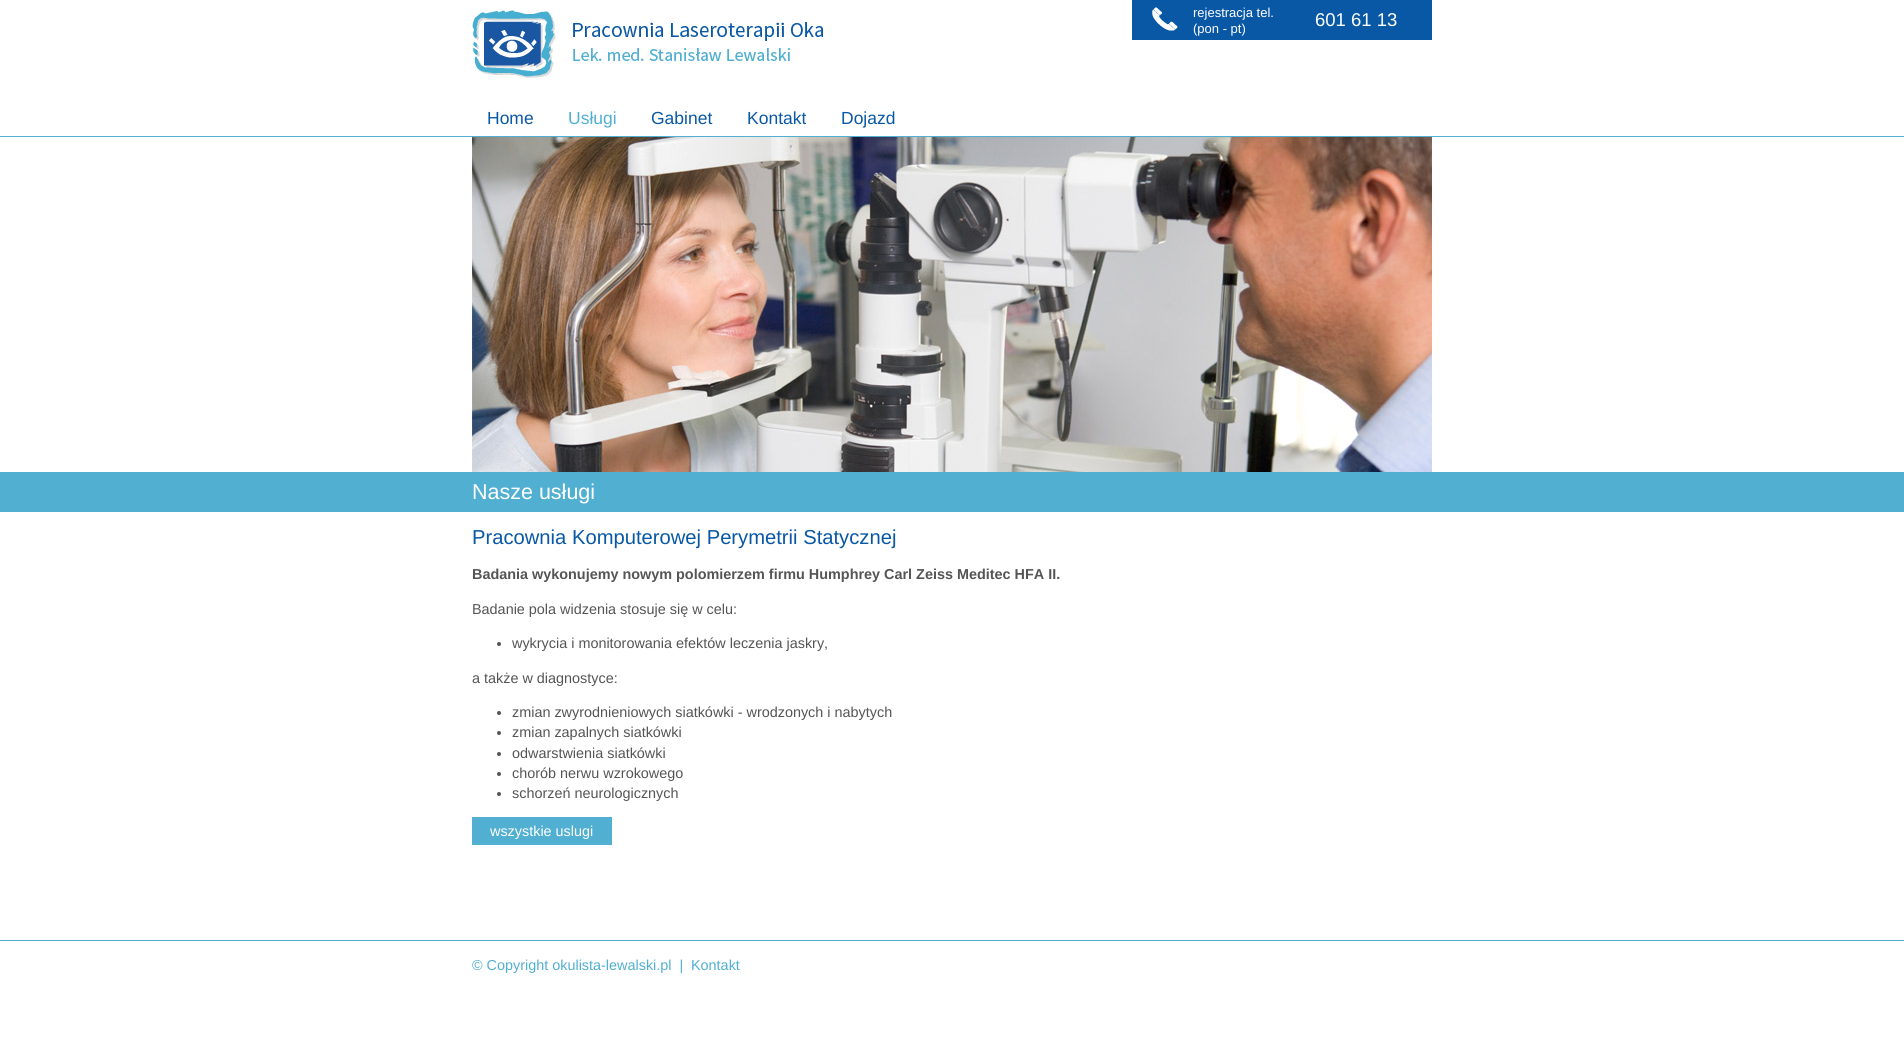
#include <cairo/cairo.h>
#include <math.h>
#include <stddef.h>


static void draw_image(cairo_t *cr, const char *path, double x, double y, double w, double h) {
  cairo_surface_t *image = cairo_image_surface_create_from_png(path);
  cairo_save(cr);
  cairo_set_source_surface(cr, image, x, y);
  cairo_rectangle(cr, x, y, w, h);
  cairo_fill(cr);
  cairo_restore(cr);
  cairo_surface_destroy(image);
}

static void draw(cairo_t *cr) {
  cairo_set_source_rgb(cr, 1, 1, 1);
  cairo_paint(cr);
  draw_image(cr, "images/1.png", 0, 136, 1904, 376);
  draw_image(cr, "images/2.png", 472, 10, 351, 68);
  cairo_set_source_rgb(cr, 9 / 255.0, 88 / 255.0, 165 / 255.0);
  cairo_rectangle(cr, 1132, 0, 300, 40);
  cairo_fill(cr);
  draw_image(cr, "images/3.png", 1152, 7, 26, 24);
  draw_image(cr, "images/4.png", 472, 137, 960, 335);
  cairo_set_source_rgb(cr, 85 / 255.0, 85 / 255.0, 85 / 255.0);
  cairo_arc(cr, 499, 644, 2, 0, 2 * M_PI);
  cairo_fill(cr);
  cairo_arc(cr, 499, 713, 2, 0, 2 * M_PI);
  cairo_fill(cr);
  cairo_arc(cr, 499, 733, 2, 0, 2 * M_PI);
  cairo_fill(cr);
  cairo_arc(cr, 499, 754, 2, 0, 2 * M_PI);
  cairo_fill(cr);
  cairo_arc(cr, 499, 774, 2, 0, 2 * M_PI);
  cairo_fill(cr);
  cairo_arc(cr, 499, 794, 2, 0, 2 * M_PI);
  cairo_fill(cr);
  cairo_set_source_rgb(cr, 81 / 255.0, 175 / 255.0, 209 / 255.0);
  cairo_rectangle(cr, 472, 817, 140, 28);
  cairo_fill(cr);
  cairo_rectangle(cr, 0, 940, 1904, 1);
  cairo_fill(cr);
  cairo_select_font_face(cr, "Liberation Sans", CAIRO_FONT_SLANT_NORMAL, CAIRO_FONT_WEIGHT_NORMAL);
  cairo_set_font_size(cr, 13);
  cairo_set_source_rgb(cr, 1, 1, 1);
  cairo_move_to(cr, 1193, 17);
  cairo_show_text(cr, "rejestracja tel.");
  cairo_move_to(cr, 1193, 33);
  cairo_show_text(cr, "(pon - pt)");
  cairo_set_font_size(cr, 18.5);
  cairo_move_to(cr, 1315, 26);
  cairo_show_text(cr, "601 61 13");
  cairo_set_font_size(cr, 17.5);
  cairo_set_source_rgb(cr, 9 / 255.0, 88 / 255.0, 165 / 255.0);
  cairo_move_to(cr, 487, 124);
  cairo_show_text(cr, "Home");
  cairo_set_source_rgb(cr, 81 / 255.0, 175 / 255.0, 209 / 255.0);
  cairo_move_to(cr, 568, 124);
  cairo_show_text(cr, "Usługi");
  cairo_set_source_rgb(cr, 9 / 255.0, 88 / 255.0, 165 / 255.0);
  cairo_move_to(cr, 651, 124);
  cairo_show_text(cr, "Gabinet");
  cairo_move_to(cr, 747, 124);
  cairo_show_text(cr, "Kontakt");
  cairo_move_to(cr, 841, 124);
  cairo_show_text(cr, "Dojazd");
  cairo_set_font_size(cr, 21.5);
  cairo_set_source_rgb(cr, 1, 1, 1);
  cairo_move_to(cr, 472, 499);
  cairo_show_text(cr, "Nasze usługi");
  cairo_set_font_size(cr, 20.2);
  cairo_set_source_rgb(cr, 9 / 255.0, 88 / 255.0, 165 / 255.0);
  cairo_move_to(cr, 472, 544);
  cairo_show_text(cr, "Pracownia Komputerowej Perymetrii Statycznej");
  cairo_select_font_face(cr, "Liberation Sans", CAIRO_FONT_SLANT_NORMAL, CAIRO_FONT_WEIGHT_BOLD);
  cairo_set_font_size(cr, 14.4);
  cairo_set_source_rgb(cr, 85 / 255.0, 85 / 255.0, 85 / 255.0);
  cairo_move_to(cr, 472, 579);
  cairo_show_text(cr, "Badania wykonujemy nowym polomierzem firmu Humphrey Carl Zeiss Meditec HFA II.");
  cairo_select_font_face(cr, "Liberation Sans", CAIRO_FONT_SLANT_NORMAL, CAIRO_FONT_WEIGHT_NORMAL);
  cairo_move_to(cr, 472, 614);
  cairo_show_text(cr, "Badanie pola widzenia stosuje się w celu:");
  cairo_move_to(cr, 512, 648);
  cairo_show_text(cr, "wykrycia i monitorowania efektów leczenia jaskry,");
  cairo_move_to(cr, 472, 683);
  cairo_show_text(cr, "a także w diagnostyce:");
  cairo_move_to(cr, 512, 717);
  cairo_show_text(cr, "zmian zwyrodnieniowych siatkówki - wrodzonych i nabytych");
  cairo_move_to(cr, 512, 737);
  cairo_show_text(cr, "zmian zapalnych siatkówki");
  cairo_move_to(cr, 512, 758);
  cairo_show_text(cr, "odwarstwienia siatkówki");
  cairo_move_to(cr, 512, 778);
  cairo_show_text(cr, "chorób nerwu wzrokowego");
  cairo_move_to(cr, 512, 798);
  cairo_show_text(cr, "schorzeń neurologicznych");
  cairo_set_source_rgb(cr, 1, 1, 1);
  cairo_move_to(cr, 490, 836);
  cairo_show_text(cr, "wszystkie uslugi");
  cairo_set_source_rgb(cr, 81 / 255.0, 175 / 255.0, 209 / 255.0);
  cairo_move_to(cr, 472, 970);
  cairo_show_text(cr, "© Copyright okulista-lewalski.pl  |");
  cairo_move_to(cr, 691, 970);
  cairo_show_text(cr, "Kontakt");
}

int main(void) {
  cairo_surface_t *surface = cairo_image_surface_create(CAIRO_FORMAT_RGB24, 1904, 1047);
  cairo_t *cr = cairo_create(surface);
  cairo_font_options_t *options = cairo_font_options_create();
  cairo_font_options_set_hint_metrics(options, CAIRO_HINT_METRICS_OFF);
  cairo_font_options_set_hint_style(options, CAIRO_HINT_STYLE_NONE);
  cairo_set_font_options(cr, options);
  cairo_set_miter_limit(cr, 4);
  draw(cr);
  cairo_surface_write_to_png(surface, "out.png");
  cairo_font_options_destroy(options);
  cairo_destroy(cr);
  cairo_surface_destroy(surface);
  return 0;
}
